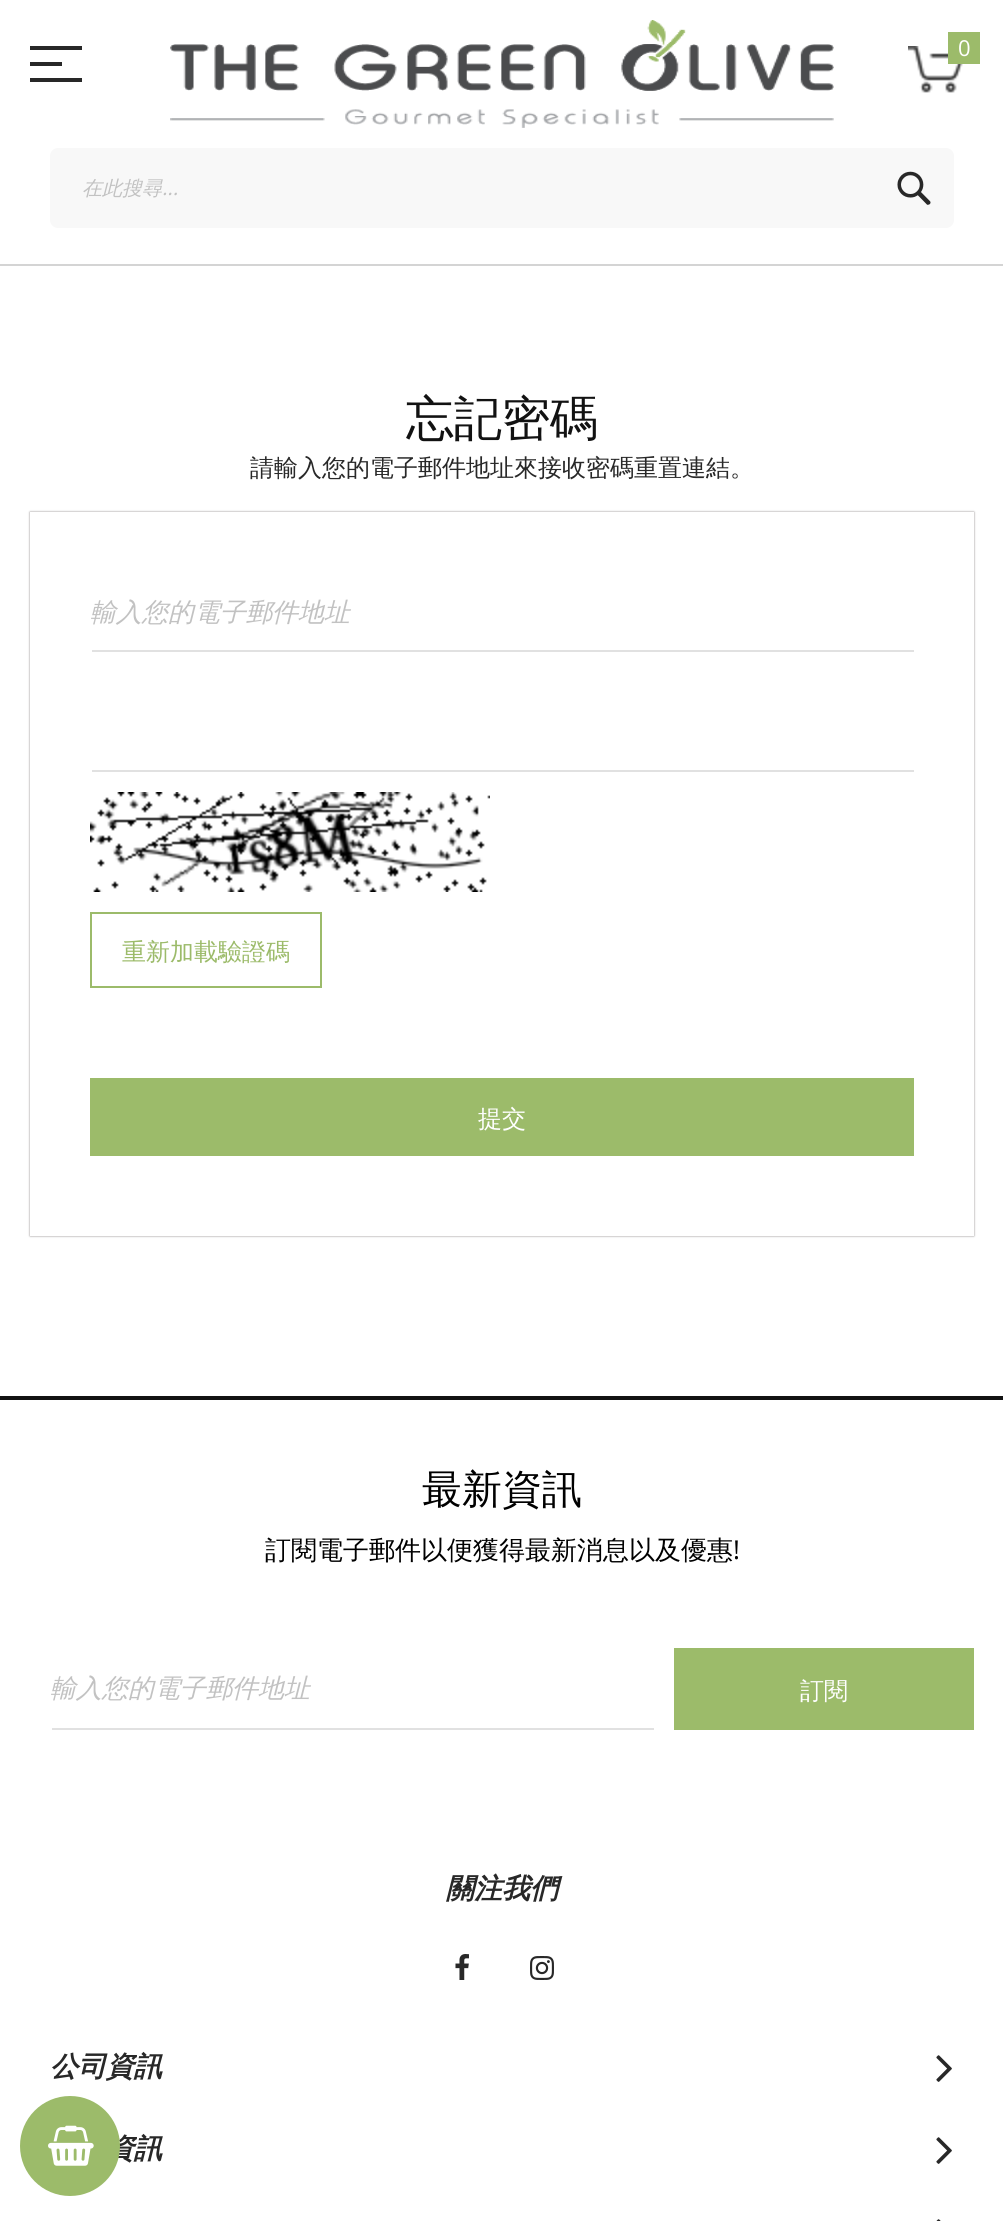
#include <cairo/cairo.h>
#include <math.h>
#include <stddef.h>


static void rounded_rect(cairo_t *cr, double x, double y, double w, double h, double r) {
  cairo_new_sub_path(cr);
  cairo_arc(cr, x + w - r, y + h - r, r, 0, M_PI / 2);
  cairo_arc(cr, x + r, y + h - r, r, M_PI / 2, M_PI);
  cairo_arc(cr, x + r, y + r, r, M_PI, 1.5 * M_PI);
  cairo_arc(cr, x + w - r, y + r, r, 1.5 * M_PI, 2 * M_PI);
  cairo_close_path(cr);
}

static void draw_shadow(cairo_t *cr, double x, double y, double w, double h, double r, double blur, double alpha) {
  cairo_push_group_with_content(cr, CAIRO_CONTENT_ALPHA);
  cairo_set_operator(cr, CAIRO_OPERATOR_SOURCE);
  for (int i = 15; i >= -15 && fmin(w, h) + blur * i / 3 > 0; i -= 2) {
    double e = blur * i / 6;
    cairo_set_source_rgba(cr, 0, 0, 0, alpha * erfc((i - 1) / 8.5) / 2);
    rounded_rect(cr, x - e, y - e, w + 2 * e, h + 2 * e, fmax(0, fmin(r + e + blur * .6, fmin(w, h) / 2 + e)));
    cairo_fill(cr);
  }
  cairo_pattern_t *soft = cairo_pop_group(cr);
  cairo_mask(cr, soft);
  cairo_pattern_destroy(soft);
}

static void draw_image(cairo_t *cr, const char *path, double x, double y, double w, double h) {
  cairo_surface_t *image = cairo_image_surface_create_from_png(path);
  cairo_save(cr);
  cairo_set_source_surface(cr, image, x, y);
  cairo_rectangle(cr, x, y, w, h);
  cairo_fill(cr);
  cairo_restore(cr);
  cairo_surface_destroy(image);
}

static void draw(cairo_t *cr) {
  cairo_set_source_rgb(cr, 1, 1, 1);
  cairo_paint(cr);
  cairo_set_source_rgb(cr, 40 / 255.0, 40 / 255.0, 40 / 255.0);
  cairo_rectangle(cr, 30, 46, 52, 4);
  cairo_fill(cr);
  cairo_rectangle(cr, 30, 78, 52, 4);
  cairo_fill(cr);
  cairo_rectangle(cr, 30, 62, 32, 4);
  cairo_fill(cr);
  draw_image(cr, "images/1.png", 170, 20, 664, 108);
  draw_image(cr, "images/2.png", 908, 46, 55, 47);
  cairo_set_source_rgb(cr, 156 / 255.0, 187 / 255.0, 106 / 255.0);
  cairo_rectangle(cr, 948, 32, 32, 32);
  cairo_fill(cr);
  cairo_set_source_rgb(cr, 248 / 255.0, 248 / 255.0, 248 / 255.0);
  rounded_rect(cr, 50, 148, 904, 80, 8);
  cairo_fill(cr);
  draw_image(cr, "images/3.png", 897, 171, 34, 34);
  cairo_set_source_rgb(cr, 212 / 255.0, 212 / 255.0, 212 / 255.0);
  cairo_rectangle(cr, 0, 264, 1003, 2);
  cairo_fill(cr);
  cairo_save(cr);
  cairo_set_fill_rule(cr, CAIRO_FILL_RULE_EVEN_ODD);
  cairo_new_path(cr);
  cairo_move_to(cr, 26, 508);
  cairo_line_to(cr, 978, 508);
  cairo_line_to(cr, 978, 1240);
  cairo_line_to(cr, 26, 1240);
  cairo_close_path(cr);
  cairo_move_to(cr, 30, 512);
  cairo_line_to(cr, 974, 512);
  cairo_line_to(cr, 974, 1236);
  cairo_line_to(cr, 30, 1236);
  cairo_close_path(cr);
  cairo_clip(cr);
  cairo_set_source_rgb(cr, 140 / 255.0, 134 / 255.0, 134 / 255.0);
  draw_shadow(cr, 30, 512, 944, 724, 0, 1, 1);
  cairo_restore(cr);
  cairo_set_source_rgb(cr, 225 / 255.0, 225 / 255.0, 225 / 255.0);
  cairo_rectangle(cr, 92, 650, 822, 2);
  cairo_fill(cr);
  cairo_rectangle(cr, 92, 770, 822, 2);
  cairo_fill(cr);
  draw_image(cr, "images/4.png", 90, 792, 400, 100);
  cairo_rectangle(cr, 91, 913, 230, 74);
  cairo_set_source_rgb(cr, 156 / 255.0, 187 / 255.0, 106 / 255.0);
  cairo_stroke(cr);
  cairo_rectangle(cr, 90, 1078, 824, 78);
  cairo_fill(cr);
  cairo_set_source_rgb(cr, 18 / 255.0, 18 / 255.0, 18 / 255.0);
  cairo_rectangle(cr, 0, 1396, 1003, 4);
  cairo_fill(cr);
  cairo_set_source_rgb(cr, 225 / 255.0, 225 / 255.0, 225 / 255.0);
  cairo_rectangle(cr, 52, 1728, 602, 2);
  cairo_fill(cr);
  cairo_set_source_rgb(cr, 156 / 255.0, 187 / 255.0, 106 / 255.0);
  cairo_rectangle(cr, 674, 1648, 300, 82);
  cairo_fill(cr);
  draw_image(cr, "images/5.png", 455, 1954, 14, 26);
  draw_image(cr, "images/6.png", 530, 1956, 24, 24);
  draw_image(cr, "images/7.png", 936, 2055, 16, 27);
  draw_image(cr, "images/7.png", 936, 2137, 16, 27);
  draw_image(cr, "images/8.png", 936, 2219, 5, 2);
  cairo_select_font_face(cr, "Open Sans", CAIRO_FONT_SLANT_NORMAL, CAIRO_FONT_WEIGHT_NORMAL);
  cairo_set_font_size(cr, 22);
  cairo_set_source_rgb(cr, 1, 1, 1);
  cairo_move_to(cr, 958, 56);
  cairo_show_text(cr, "0");
  cairo_select_font_face(cr, "WenQuanYi Zen Hei Medium", CAIRO_FONT_SLANT_ITALIC, CAIRO_FONT_WEIGHT_NORMAL);
  cairo_set_font_size(cr, 20);
  cairo_set_source_rgb(cr, 194 / 255.0, 194 / 255.0, 194 / 255.0);
  cairo_move_to(cr, 82, 195);
  cairo_show_text(cr, "在此搜尋");
  cairo_select_font_face(cr, "Open Sans", CAIRO_FONT_SLANT_ITALIC, CAIRO_FONT_WEIGHT_NORMAL);
  cairo_move_to(cr, 162, 195);
  cairo_show_text(cr, "...");
  cairo_select_font_face(cr, "WenQuanYi Zen Hei Medium", CAIRO_FONT_SLANT_NORMAL, CAIRO_FONT_WEIGHT_NORMAL);
  cairo_set_font_size(cr, 48);
  cairo_set_source_rgb(cr, 18 / 255.0, 18 / 255.0, 18 / 255.0);
  cairo_move_to(cr, 406, 435);
  cairo_show_text(cr, "忘記密碼");
  cairo_set_font_size(cr, 24);
  cairo_set_source_rgb(cr, 40 / 255.0, 40 / 255.0, 40 / 255.0);
  cairo_move_to(cr, 250, 476);
  cairo_show_text(cr, "請輸入您的電子郵件地址來接收密碼重置連結。");
  cairo_select_font_face(cr, "WenQuanYi Zen Hei Medium", CAIRO_FONT_SLANT_ITALIC, CAIRO_FONT_WEIGHT_NORMAL);
  cairo_set_font_size(cr, 26);
  cairo_set_source_rgb(cr, 194 / 255.0, 194 / 255.0, 194 / 255.0);
  cairo_move_to(cr, 90, 621);
  cairo_show_text(cr, "輸入您的電子郵件地址");
  cairo_select_font_face(cr, "WenQuanYi Zen Hei Medium", CAIRO_FONT_SLANT_NORMAL, CAIRO_FONT_WEIGHT_NORMAL);
  cairo_set_font_size(cr, 24);
  cairo_set_source_rgb(cr, 156 / 255.0, 187 / 255.0, 106 / 255.0);
  cairo_move_to(cr, 122, 960);
  cairo_show_text(cr, "重新加載驗證碼");
  cairo_set_source_rgb(cr, 1, 1, 1);
  cairo_move_to(cr, 478, 1127);
  cairo_show_text(cr, "提交");
  cairo_set_font_size(cr, 40);
  cairo_set_source_rgb(cr, 0, 0, 0);
  cairo_move_to(cr, 422, 1503);
  cairo_show_text(cr, "最新資訊");
  cairo_set_font_size(cr, 26);
  cairo_move_to(cr, 265, 1559);
  cairo_show_text(cr, "訂閱電子郵件以便獲得最新消息以及優惠");
  cairo_select_font_face(cr, "Open Sans", CAIRO_FONT_SLANT_NORMAL, CAIRO_FONT_WEIGHT_NORMAL);
  cairo_move_to(cr, 733, 1559);
  cairo_show_text(cr, "!");
  cairo_select_font_face(cr, "WenQuanYi Zen Hei Medium", CAIRO_FONT_SLANT_ITALIC, CAIRO_FONT_WEIGHT_NORMAL);
  cairo_set_source_rgb(cr, 194 / 255.0, 194 / 255.0, 194 / 255.0);
  cairo_move_to(cr, 50, 1697);
  cairo_show_text(cr, "輸入您的電子郵件地址");
  cairo_select_font_face(cr, "WenQuanYi Zen Hei Medium", CAIRO_FONT_SLANT_NORMAL, CAIRO_FONT_WEIGHT_NORMAL);
  cairo_set_font_size(cr, 24);
  cairo_set_source_rgb(cr, 1, 1, 1);
  cairo_move_to(cr, 800, 1699);
  cairo_show_text(cr, "訂閱");
  cairo_select_font_face(cr, "WenQuanYi Zen Hei", CAIRO_FONT_SLANT_ITALIC, CAIRO_FONT_WEIGHT_BOLD);
  cairo_set_font_size(cr, 28);
  cairo_set_source_rgb(cr, 40 / 255.0, 40 / 255.0, 40 / 255.0);
  cairo_move_to(cr, 446, 1898);
  cairo_show_text(cr, "關注我們");
  cairo_move_to(cr, 50, 2076);
  cairo_show_text(cr, "公司資訊");
  cairo_move_to(cr, 106, 2158);
  cairo_show_text(cr, "資訊");
  cairo_set_source_rgb(cr, 156 / 255.0, 187 / 255.0, 106 / 255.0);
  cairo_new_path(cr);
  cairo_arc(cr, 70, 2146, 50, 0, 2 * M_PI);
  cairo_fill(cr);
  draw_image(cr, "images/9.png", 48, 2125, 46, 41);
}

int main(void) {
  cairo_surface_t *surface = cairo_image_surface_create(CAIRO_FORMAT_RGB24, 1003, 2221);
  cairo_t *cr = cairo_create(surface);
  cairo_font_options_t *options = cairo_font_options_create();
  cairo_font_options_set_hint_metrics(options, CAIRO_HINT_METRICS_OFF);
  cairo_font_options_set_hint_style(options, CAIRO_HINT_STYLE_NONE);
  cairo_set_font_options(cr, options);
  cairo_set_miter_limit(cr, 4);
  draw(cr);
  cairo_surface_write_to_png(surface, "out.png");
  cairo_font_options_destroy(options);
  cairo_destroy(cr);
  cairo_surface_destroy(surface);
  return 0;
}
